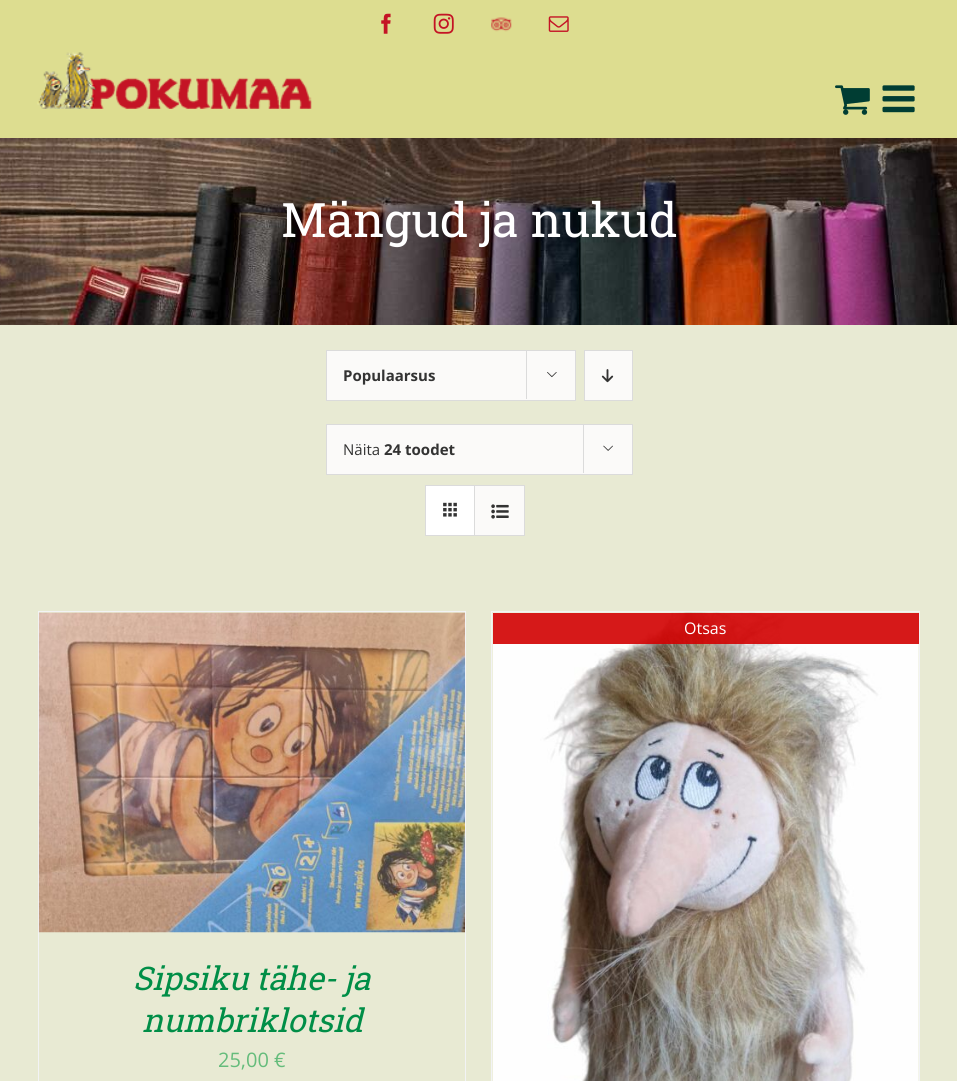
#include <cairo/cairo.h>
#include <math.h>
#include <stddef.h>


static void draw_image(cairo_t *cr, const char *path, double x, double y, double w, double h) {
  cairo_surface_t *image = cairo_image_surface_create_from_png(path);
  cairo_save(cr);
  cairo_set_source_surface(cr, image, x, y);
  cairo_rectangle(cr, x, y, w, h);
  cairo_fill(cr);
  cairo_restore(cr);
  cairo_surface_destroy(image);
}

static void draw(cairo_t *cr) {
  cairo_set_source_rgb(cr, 232 / 255.0, 234 / 255.0, 211 / 255.0);
  cairo_paint(cr);
  cairo_set_source_rgb(cr, 221 / 255.0, 221 / 255.0, 144 / 255.0);
  cairo_rectangle(cr, 0, 0, 957, 138);
  cairo_fill(cr);
  draw_image(cr, "images/1.png", 381, 13, 10, 21);
  draw_image(cr, "images/2.png", 433, 13, 21, 21);
  draw_image(cr, "images/3.png", 491, 17, 21, 15);
  draw_image(cr, "images/4.png", 548, 16, 21, 16);
  draw_image(cr, "images/5.png", 37, 52, 275, 57);
  draw_image(cr, "images/6.png", 835, 85, 35, 30);
  draw_image(cr, "images/7.png", 882, 85, 33, 28);
  draw_image(cr, "images/8.png", 0, 138, 957, 187);
  cairo_set_source_rgb(cr, 251 / 255.0, 250 / 255.0, 249 / 255.0);
  cairo_rectangle(cr, 326.5, 350.5, 249, 50);
  cairo_fill_preserve(cr);
  cairo_set_source_rgb(cr, 219 / 255.0, 219 / 255.0, 219 / 255.0);
  cairo_set_line_width(cr, 1);
  cairo_stroke(cr);
  cairo_rectangle(cr, 526, 350, 1, 49);
  cairo_fill(cr);
  draw_image(cr, "images/9.png", 547, 372, 10, 6);
  cairo_set_source_rgb(cr, 251 / 255.0, 250 / 255.0, 249 / 255.0);
  cairo_rectangle(cr, 584.5, 350.5, 48, 50);
  cairo_fill_preserve(cr);
  cairo_set_source_rgb(cr, 219 / 255.0, 219 / 255.0, 219 / 255.0);
  cairo_stroke(cr);
  draw_image(cr, "images/10.png", 601, 369, 13, 14);
  cairo_set_source_rgb(cr, 251 / 255.0, 250 / 255.0, 249 / 255.0);
  cairo_rectangle(cr, 326.5, 424.5, 306, 50);
  cairo_fill_preserve(cr);
  cairo_set_source_rgb(cr, 219 / 255.0, 219 / 255.0, 219 / 255.0);
  cairo_stroke(cr);
  cairo_rectangle(cr, 583, 424, 1, 49);
  cairo_fill(cr);
  draw_image(cr, "images/11.png", 603, 445, 10, 6);
  cairo_rectangle(cr, 425.5, 485.5, 99, 50);
  cairo_stroke(cr);
  cairo_set_source_rgb(cr, 1, 1, 1);
  cairo_rectangle(cr, 426, 486, 48, 49);
  cairo_fill(cr);
  cairo_set_source_rgb(cr, 219 / 255.0, 219 / 255.0, 219 / 255.0);
  cairo_rectangle(cr, 474, 486, 1, 49);
  cairo_fill(cr);
  draw_image(cr, "images/12.png", 443, 502, 14, 15);
  cairo_set_source_rgb(cr, 251 / 255.0, 250 / 255.0, 249 / 255.0);
  cairo_rectangle(cr, 475, 486, 49, 49);
  cairo_fill(cr);
  draw_image(cr, "images/13.png", 491, 504, 18, 15);
  cairo_set_source_rgb(cr, 242 / 255.0, 243 / 255.0, 245 / 255.0);
  cairo_rectangle(cr, 491, 611, 429, 1);
  cairo_fill(cr);
  cairo_rectangle(cr, 919, 611, 1, 470);
  cairo_fill(cr);
  cairo_rectangle(cr, 491, 611, 1, 470);
  cairo_fill(cr);
  draw_image(cr, "images/14.png", 492, 612, 427, 469);
  cairo_set_source_rgba(cr, 210 / 255.0, 0, 0, 0.9);
  cairo_rectangle(cr, 493, 613, 426, 31);
  cairo_fill(cr);
  cairo_set_source_rgb(cr, 242 / 255.0, 243 / 255.0, 245 / 255.0);
  cairo_rectangle(cr, 38, 611, 428, 1);
  cairo_fill(cr);
  cairo_rectangle(cr, 465, 611, 1, 470);
  cairo_fill(cr);
  cairo_rectangle(cr, 38, 611, 1, 470);
  cairo_fill(cr);
  draw_image(cr, "images/15.png", 38, 612, 427, 321);
  cairo_select_font_face(cr, "Roboto Slab", CAIRO_FONT_SLANT_NORMAL, CAIRO_FONT_WEIGHT_NORMAL);
  cairo_set_font_size(cr, 47.5);
  cairo_set_source_rgb(cr, 1, 1, 1);
  cairo_move_to(cr, 281, 237);
  cairo_show_text(cr, "Mängud ja nukud");
  cairo_select_font_face(cr, "Open Sans", CAIRO_FONT_SLANT_NORMAL, CAIRO_FONT_WEIGHT_BOLD);
  cairo_set_font_size(cr, 15);
  cairo_set_source_rgb(cr, 51 / 255.0, 51 / 255.0, 51 / 255.0);
  cairo_move_to(cr, 343, 381);
  cairo_show_text(cr, "Populaarsus");
  cairo_select_font_face(cr, "Open Sans", CAIRO_FONT_SLANT_NORMAL, CAIRO_FONT_WEIGHT_NORMAL);
  cairo_move_to(cr, 343, 455);
  cairo_show_text(cr, "Näita");
  cairo_select_font_face(cr, "Open Sans", CAIRO_FONT_SLANT_NORMAL, CAIRO_FONT_WEIGHT_BOLD);
  cairo_move_to(cr, 384, 455);
  cairo_show_text(cr, "24 toodet");
  cairo_select_font_face(cr, "Open Sans", CAIRO_FONT_SLANT_NORMAL, CAIRO_FONT_WEIGHT_NORMAL);
  cairo_set_font_size(cr, 16);
  cairo_set_source_rgb(cr, 1, 1, 1);
  cairo_move_to(cr, 684, 634);
  cairo_show_text(cr, "Otsas");
  cairo_select_font_face(cr, "Roboto Slab", CAIRO_FONT_SLANT_ITALIC, CAIRO_FONT_WEIGHT_NORMAL);
  cairo_set_font_size(cr, 32.5);
  cairo_set_source_rgb(cr, 0, 142 / 255.0, 71 / 255.0);
  cairo_move_to(cr, 133, 990);
  cairo_show_text(cr, "Sipsiku tähe- ja");
  cairo_move_to(cr, 142, 1032);
  cairo_show_text(cr, "numbriklotsid");
  cairo_select_font_face(cr, "Open Sans", CAIRO_FONT_SLANT_NORMAL, CAIRO_FONT_WEIGHT_NORMAL);
  cairo_set_font_size(cr, 20);
  cairo_set_source_rgb(cr, 101 / 255.0, 188 / 255.0, 123 / 255.0);
  cairo_move_to(cr, 218, 1067);
  cairo_show_text(cr, "25,00 €");
}

int main(void) {
  cairo_surface_t *surface = cairo_image_surface_create(CAIRO_FORMAT_RGB24, 957, 1081);
  cairo_t *cr = cairo_create(surface);
  cairo_font_options_t *options = cairo_font_options_create();
  cairo_font_options_set_hint_metrics(options, CAIRO_HINT_METRICS_OFF);
  cairo_font_options_set_hint_style(options, CAIRO_HINT_STYLE_NONE);
  cairo_set_font_options(cr, options);
  cairo_set_miter_limit(cr, 4);
  draw(cr);
  cairo_surface_write_to_png(surface, "out.png");
  cairo_font_options_destroy(options);
  cairo_destroy(cr);
  cairo_surface_destroy(surface);
  return 0;
}
